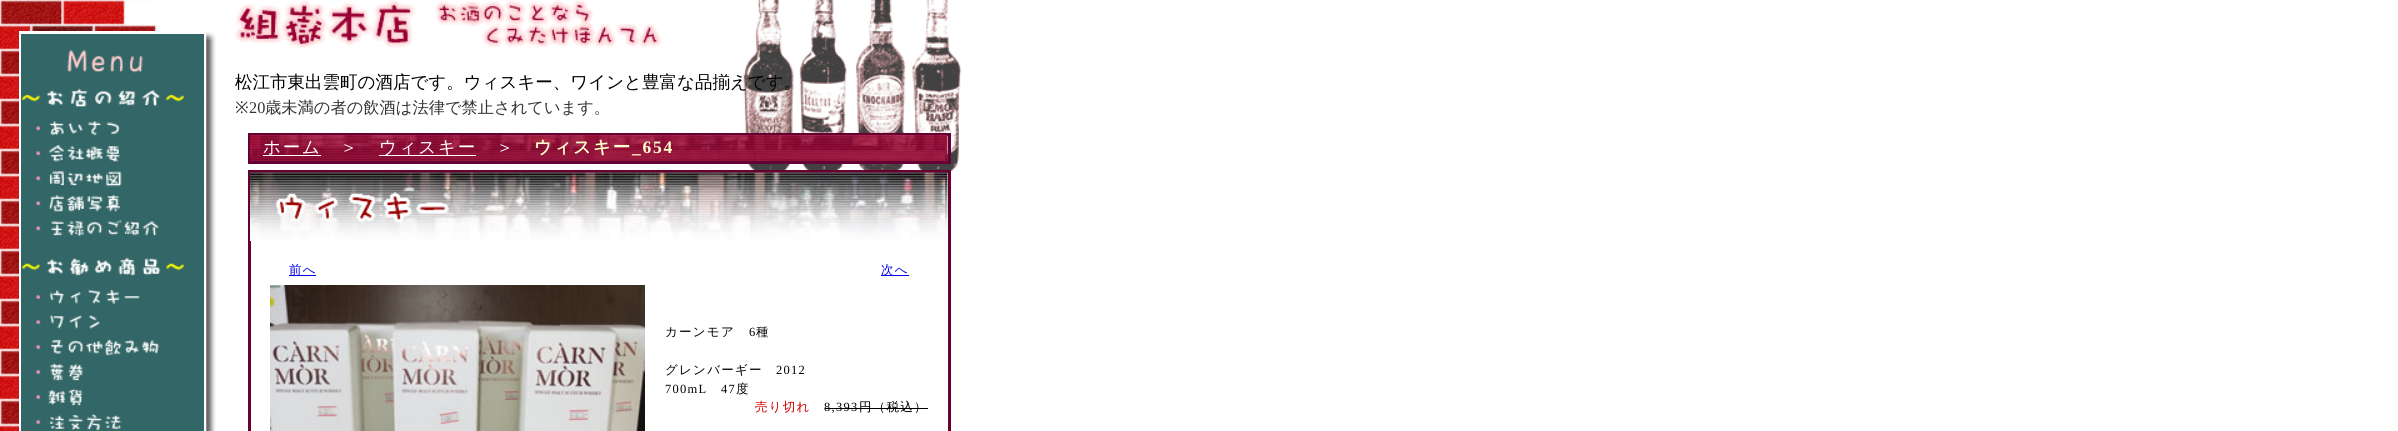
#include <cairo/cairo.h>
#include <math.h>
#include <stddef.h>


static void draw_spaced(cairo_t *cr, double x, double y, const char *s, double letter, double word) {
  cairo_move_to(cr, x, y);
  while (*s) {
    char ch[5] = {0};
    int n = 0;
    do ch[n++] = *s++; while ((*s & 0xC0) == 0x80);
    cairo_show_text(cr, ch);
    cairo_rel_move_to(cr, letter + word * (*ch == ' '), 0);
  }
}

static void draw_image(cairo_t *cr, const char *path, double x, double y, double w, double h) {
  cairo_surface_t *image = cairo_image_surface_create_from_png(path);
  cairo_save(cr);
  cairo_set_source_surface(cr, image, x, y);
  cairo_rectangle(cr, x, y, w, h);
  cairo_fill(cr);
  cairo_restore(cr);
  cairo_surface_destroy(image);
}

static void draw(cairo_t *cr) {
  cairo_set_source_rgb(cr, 1, 1, 1);
  cairo_paint(cr);
  draw_image(cr, "images/1.png", 0, 0, 157, 431);
  draw_image(cr, "images/2.png", 743, 0, 219, 176);
  cairo_set_source_rgb(cr, 1, 1, 1);
  cairo_rectangle(cr, 19, 31, 138, 3);
  cairo_fill(cr);
  draw_image(cr, "images/3.png", 206, 31, 8, 3);
  cairo_rectangle(cr, 19, 34, 2, 397);
  cairo_fill(cr);
  cairo_set_source_rgb(cr, 51 / 255.0, 102 / 255.0, 102 / 255.0);
  cairo_rectangle(cr, 21, 34, 183, 397);
  cairo_fill(cr);
  draw_image(cr, "images/4.png", 67, 49, 76, 24);
  draw_image(cr, "images/5.png", 21, 88, 163, 19);
  draw_image(cr, "images/6.png", 36, 121, 84, 15);
  draw_image(cr, "images/7.png", 36, 144, 85, 18);
  draw_image(cr, "images/8.png", 36, 171, 86, 16);
  draw_image(cr, "images/9.png", 36, 194, 85, 18);
  draw_image(cr, "images/10.png", 36, 219, 123, 18);
  draw_image(cr, "images/11.png", 21, 257, 163, 19);
  draw_image(cr, "images/12.png", 36, 289, 104, 15);
  draw_image(cr, "images/13.png", 36, 315, 65, 14);
  draw_image(cr, "images/14.png", 36, 339, 123, 17);
  draw_image(cr, "images/15.png", 36, 363, 47, 18);
  draw_image(cr, "images/16.png", 36, 388, 47, 18);
  draw_image(cr, "images/17.png", 36, 413, 86, 18);
  draw_image(cr, "images/18.png", 206, 33, 10, 7);
  draw_image(cr, "images/19.png", 206, 40, 10, 391);
  draw_image(cr, "images/20.png", 235, 0, 428, 49);
  cairo_set_source_rgb(cr, 102 / 255.0, 0, 51 / 255.0);
  cairo_rectangle(cr, 248, 133, 3, 2);
  cairo_fill(cr);
  cairo_rectangle(cr, 250, 133, 698, 3);
  cairo_fill(cr);
  cairo_rectangle(cr, 948, 133, 3, 28);
  cairo_fill(cr);
  cairo_rectangle(cr, 248, 135, 2, 26);
  cairo_fill(cr);
  draw_image(cr, "images/21.png", 250, 135, 698, 26);
  cairo_set_source_rgb(cr, 1, 1, 1);
  cairo_rectangle(cr, 263, 155, 58, 1);
  cairo_fill(cr);
  cairo_rectangle(cr, 379, 155, 97, 1);
  cairo_fill(cr);
  cairo_set_source_rgb(cr, 102 / 255.0, 0, 51 / 255.0);
  cairo_rectangle(cr, 248, 161, 703, 3);
  cairo_fill(cr);
  cairo_rectangle(cr, 248, 170, 703, 3);
  cairo_fill(cr);
  cairo_rectangle(cr, 248, 173, 2, 68);
  cairo_fill(cr);
  draw_image(cr, "images/22.png", 250, 172, 698, 69);
  draw_image(cr, "images/23.png", 276, 192, 173, 31);
  cairo_rectangle(cr, 948, 173, 3, 258);
  cairo_fill(cr);
  cairo_rectangle(cr, 248, 241, 3, 190);
  cairo_fill(cr);
  cairo_set_source_rgb(cr, 0, 0, 238 / 255.0);
  cairo_rectangle(cr, 289, 275, 27, 1);
  cairo_fill(cr);
  cairo_rectangle(cr, 881, 275, 28, 1);
  cairo_fill(cr);
  draw_image(cr, "images/24.png", 270, 285, 375, 146);
  cairo_set_source_rgb(cr, 0, 0, 0);
  cairo_rectangle(cr, 825, 408, 103, 1);
  cairo_fill(cr);
  cairo_select_font_face(cr, "WenQuanYi Zen Hei Medium", CAIRO_FONT_SLANT_NORMAL, CAIRO_FONT_WEIGHT_NORMAL);
  cairo_set_font_size(cr, 17.5);
  cairo_move_to(cr, 235, 88);
  cairo_show_text(cr, "松江市東出雲町の酒店です。ウィスキー、ワインと豊富な品揃えです。");
  cairo_select_font_face(cr, "Noto Sans", CAIRO_FONT_SLANT_NORMAL, CAIRO_FONT_WEIGHT_NORMAL);
  cairo_set_font_size(cr, 16.25);
  cairo_set_source_rgb(cr, 51 / 255.0, 51 / 255.0, 51 / 255.0);
  cairo_move_to(cr, 235, 113);
  cairo_show_text(cr, "※");
  cairo_select_font_face(cr, "Liberation Serif", CAIRO_FONT_SLANT_NORMAL, CAIRO_FONT_WEIGHT_NORMAL);
  cairo_move_to(cr, 249, 113);
  cairo_show_text(cr, "20");
  cairo_select_font_face(cr, "WenQuanYi Zen Hei Medium", CAIRO_FONT_SLANT_NORMAL, CAIRO_FONT_WEIGHT_NORMAL);
  cairo_move_to(cr, 265, 113);
  cairo_show_text(cr, "歳未満の者の飲酒は法律で禁止されています。");
  cairo_set_font_size(cr, 17.5);
  cairo_set_source_rgb(cr, 1, 1, 1);
  draw_spaced(cr, 263, 153, "ホーム", 1.75, 0);
  draw_spaced(cr, 340, 153, "＞", 1.75, 0);
  draw_spaced(cr, 379, 153, "ウィスキー", 1.75, 0);
  draw_spaced(cr, 496, 153, "＞", 1.75, 0);
  cairo_select_font_face(cr, "WenQuanYi Zen Hei", CAIRO_FONT_SLANT_NORMAL, CAIRO_FONT_WEIGHT_BOLD);
  cairo_set_source_rgb(cr, 1, 1, 204 / 255.0);
  draw_spaced(cr, 534, 153, "ウィスキー", 1.75, 0);
  cairo_select_font_face(cr, "Liberation Serif", CAIRO_FONT_SLANT_NORMAL, CAIRO_FONT_WEIGHT_BOLD);
  draw_spaced(cr, 632, 153, "_654", 1.75, 0);
  cairo_select_font_face(cr, "WenQuanYi Zen Hei Medium", CAIRO_FONT_SLANT_NORMAL, CAIRO_FONT_WEIGHT_NORMAL);
  cairo_set_font_size(cr, 12.5);
  cairo_set_source_rgb(cr, 0, 0, 238 / 255.0);
  draw_spaced(cr, 289, 274, "前へ", 1.25, 0);
  draw_spaced(cr, 881, 274, "次へ", 1.25, 0);
  cairo_set_source_rgb(cr, 0, 0, 0);
  draw_spaced(cr, 665, 336, "カーンモア", 1.25, 0);
  cairo_select_font_face(cr, "Liberation Serif", CAIRO_FONT_SLANT_NORMAL, CAIRO_FONT_WEIGHT_NORMAL);
  draw_spaced(cr, 749, 336, "6", 1.25, 0);
  cairo_select_font_face(cr, "WenQuanYi Zen Hei Medium", CAIRO_FONT_SLANT_NORMAL, CAIRO_FONT_WEIGHT_NORMAL);
  draw_spaced(cr, 756, 336, "種", 1.25, 0);
  draw_spaced(cr, 665, 374, "グレンバーギー", 1.25, 0);
  cairo_select_font_face(cr, "Liberation Serif", CAIRO_FONT_SLANT_NORMAL, CAIRO_FONT_WEIGHT_NORMAL);
  draw_spaced(cr, 776, 374, "2012", 1.25, 0);
  draw_spaced(cr, 665, 393, "700mL", 1.25, 0);
  draw_spaced(cr, 721, 393, "47", 1.25, 0);
  cairo_select_font_face(cr, "WenQuanYi Zen Hei Medium", CAIRO_FONT_SLANT_NORMAL, CAIRO_FONT_WEIGHT_NORMAL);
  draw_spaced(cr, 736, 393, "度", 1.25, 0);
  cairo_set_source_rgb(cr, 204 / 255.0, 0, 0);
  draw_spaced(cr, 755, 411, "売り切れ", 1.25, 0);
  cairo_select_font_face(cr, "Liberation Serif", CAIRO_FONT_SLANT_NORMAL, CAIRO_FONT_WEIGHT_NORMAL);
  cairo_set_source_rgb(cr, 0, 0, 0);
  draw_spaced(cr, 824, 411, "8,393", 1.25, 0);
  cairo_select_font_face(cr, "WenQuanYi Zen Hei Medium", CAIRO_FONT_SLANT_NORMAL, CAIRO_FONT_WEIGHT_NORMAL);
  draw_spaced(cr, 859, 411, "円（税込）", 1.25, 0);
}

int main(void) {
  cairo_surface_t *surface = cairo_image_surface_create(CAIRO_FORMAT_RGB24, 2398, 431);
  cairo_t *cr = cairo_create(surface);
  cairo_font_options_t *options = cairo_font_options_create();
  cairo_font_options_set_hint_metrics(options, CAIRO_HINT_METRICS_OFF);
  cairo_font_options_set_hint_style(options, CAIRO_HINT_STYLE_NONE);
  cairo_set_font_options(cr, options);
  cairo_set_miter_limit(cr, 4);
  draw(cr);
  cairo_surface_write_to_png(surface, "out.png");
  cairo_font_options_destroy(options);
  cairo_destroy(cr);
  cairo_surface_destroy(surface);
  return 0;
}
